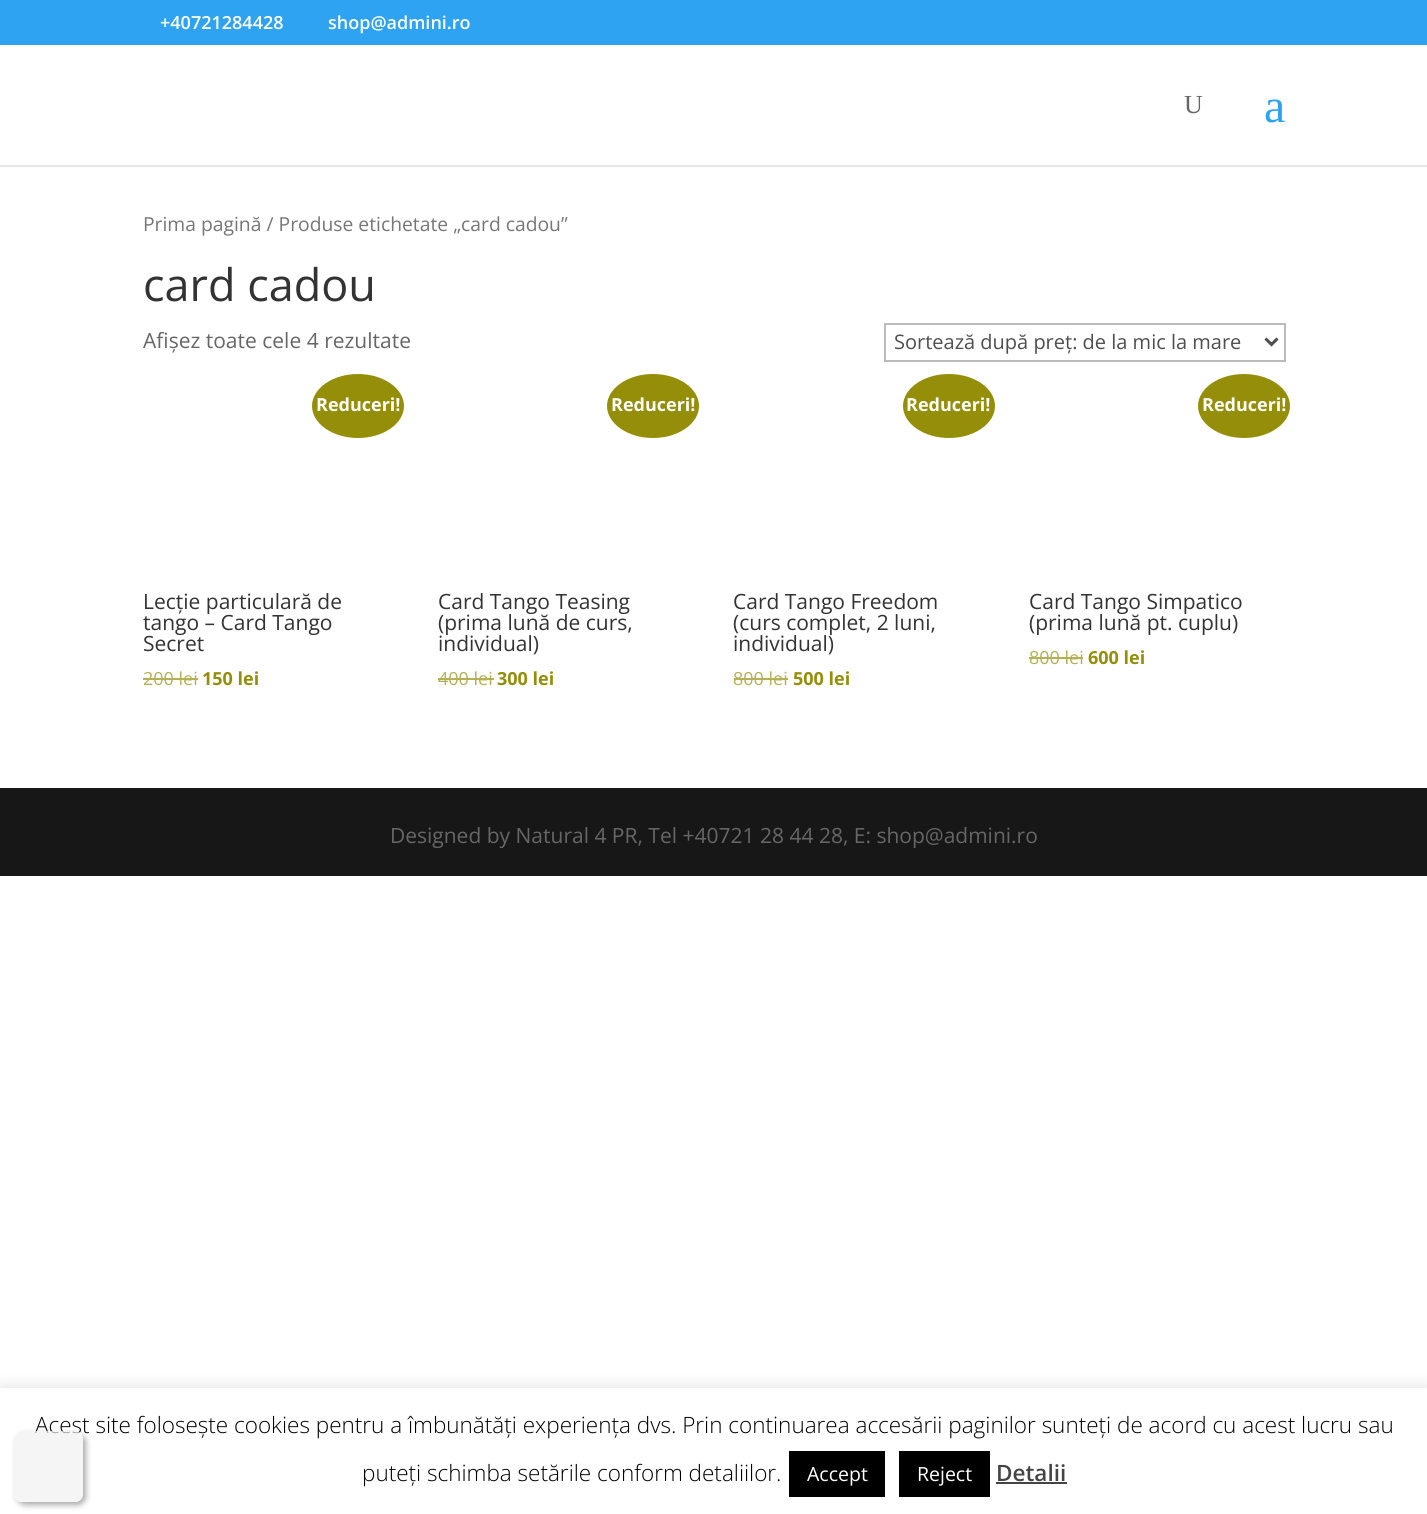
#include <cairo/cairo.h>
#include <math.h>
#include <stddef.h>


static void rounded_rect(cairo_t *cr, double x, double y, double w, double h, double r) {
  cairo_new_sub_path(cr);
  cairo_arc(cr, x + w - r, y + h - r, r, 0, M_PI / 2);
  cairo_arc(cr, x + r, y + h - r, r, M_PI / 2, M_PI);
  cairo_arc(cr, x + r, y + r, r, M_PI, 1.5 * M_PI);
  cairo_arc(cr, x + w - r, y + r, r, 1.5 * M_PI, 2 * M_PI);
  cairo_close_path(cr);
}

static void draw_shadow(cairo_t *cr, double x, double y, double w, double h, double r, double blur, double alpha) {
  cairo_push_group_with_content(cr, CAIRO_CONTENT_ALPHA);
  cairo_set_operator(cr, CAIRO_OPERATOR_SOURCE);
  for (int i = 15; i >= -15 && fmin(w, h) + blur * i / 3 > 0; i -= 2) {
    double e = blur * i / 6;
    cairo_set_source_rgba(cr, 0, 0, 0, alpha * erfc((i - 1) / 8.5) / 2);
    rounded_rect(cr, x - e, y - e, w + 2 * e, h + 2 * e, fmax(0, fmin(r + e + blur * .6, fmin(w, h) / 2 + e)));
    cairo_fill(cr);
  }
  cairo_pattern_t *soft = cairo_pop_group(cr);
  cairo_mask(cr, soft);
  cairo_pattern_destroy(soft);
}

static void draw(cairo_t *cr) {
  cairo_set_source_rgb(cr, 1, 1, 1);
  cairo_paint(cr);
  cairo_set_source_rgb(cr, 46 / 255.0, 163 / 255.0, 242 / 255.0);
  cairo_rectangle(cr, 0, 0, 1427, 45);
  cairo_fill(cr);
  cairo_set_source_rgb(cr, 230 / 255.0, 230 / 255.0, 230 / 255.0);
  cairo_rectangle(cr, 0, 165, 1427, 2);
  cairo_fill(cr);
  cairo_rectangle(cr, 885, 324, 400, 37);
  cairo_set_source_rgb(cr, 187 / 255.0, 187 / 255.0, 187 / 255.0);
  cairo_stroke(cr);
  cairo_new_path(cr);
  cairo_move_to(cr, 1265.5, 338.5);
  cairo_line_to(cr, 1271.5, 344.5);
  cairo_line_to(cr, 1277.5, 338.5);
  cairo_set_source_rgb(cr, 78 / 255.0, 78 / 255.0, 78 / 255.0);
  cairo_set_line_width(cr, 3);
  cairo_stroke(cr);
  cairo_set_source_rgb(cr, 149 / 255.0, 142 / 255.0, 9 / 255.0);
  cairo_new_path(cr);
  cairo_move_to(cr, 358, 374);
  cairo_curve_to(cr, 383.5, 374, 404, 388.5, 404, 406);
  cairo_curve_to(cr, 404, 423.5, 383.5, 438, 358, 438);
  cairo_curve_to(cr, 332.5, 438, 312, 423.5, 312, 406);
  cairo_curve_to(cr, 312, 388.5, 332.5, 374, 358, 374);
  cairo_close_path(cr);
  cairo_fill(cr);
  cairo_set_source_rgb(cr, 181 / 255.0, 176 / 255.0, 83 / 255.0);
  cairo_rectangle(cr, 143, 678, 55, 2);
  cairo_fill(cr);
  cairo_set_source_rgb(cr, 149 / 255.0, 142 / 255.0, 9 / 255.0);
  cairo_new_path(cr);
  cairo_move_to(cr, 653, 374);
  cairo_curve_to(cr, 678.5, 374, 699, 388.5, 699, 406);
  cairo_curve_to(cr, 699, 423.5, 678.5, 438, 653, 438);
  cairo_curve_to(cr, 627.5, 438, 607, 423.5, 607, 406);
  cairo_curve_to(cr, 607, 388.5, 627.5, 374, 653, 374);
  cairo_close_path(cr);
  cairo_fill(cr);
  cairo_set_source_rgb(cr, 181 / 255.0, 176 / 255.0, 83 / 255.0);
  cairo_rectangle(cr, 438, 678, 56, 2);
  cairo_fill(cr);
  cairo_set_source_rgb(cr, 149 / 255.0, 142 / 255.0, 9 / 255.0);
  cairo_new_path(cr);
  cairo_move_to(cr, 949, 374);
  cairo_curve_to(cr, 974.5, 374, 995, 388.5, 995, 406);
  cairo_curve_to(cr, 995, 423.5, 974.5, 438, 949, 438);
  cairo_curve_to(cr, 923.5, 438, 903, 423.5, 903, 406);
  cairo_curve_to(cr, 903, 388.5, 923.5, 374, 949, 374);
  cairo_close_path(cr);
  cairo_fill(cr);
  cairo_set_source_rgb(cr, 181 / 255.0, 176 / 255.0, 83 / 255.0);
  cairo_rectangle(cr, 734, 678, 54, 2);
  cairo_fill(cr);
  cairo_set_source_rgb(cr, 149 / 255.0, 142 / 255.0, 9 / 255.0);
  cairo_new_path(cr);
  cairo_move_to(cr, 1244, 374);
  cairo_curve_to(cr, 1269.5, 374, 1290, 388.5, 1290, 406);
  cairo_curve_to(cr, 1290, 423.5, 1269.5, 438, 1244, 438);
  cairo_curve_to(cr, 1218.5, 438, 1198, 423.5, 1198, 406);
  cairo_curve_to(cr, 1198, 388.5, 1218.5, 374, 1244, 374);
  cairo_close_path(cr);
  cairo_fill(cr);
  cairo_set_source_rgb(cr, 181 / 255.0, 176 / 255.0, 83 / 255.0);
  cairo_rectangle(cr, 1029, 657, 54, 2);
  cairo_fill(cr);
  cairo_set_source_rgb(cr, 23 / 255.0, 23 / 255.0, 23 / 255.0);
  cairo_rectangle(cr, 0, 788, 1427, 88);
  cairo_fill(cr);
  cairo_save(cr);
  cairo_rectangle(cr, 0, 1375, 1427, 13);
  cairo_clip(cr);
  cairo_set_source_rgb(cr, 172 / 255.0, 171 / 255.0, 171 / 255.0);
  draw_shadow(cr, 0, 1386, 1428, 128, 0, 7.5, 0.3);
  cairo_restore(cr);
  cairo_set_source_rgb(cr, 0, 0, 0);
  cairo_rectangle(cr, 789, 1451, 96, 46);
  cairo_fill(cr);
  cairo_rectangle(cr, 899, 1451, 91, 46);
  cairo_fill(cr);
  cairo_set_source_rgb(cr, 68 / 255.0, 68 / 255.0, 68 / 255.0);
  cairo_rectangle(cr, 996, 1482, 71, 2);
  cairo_fill(cr);
  cairo_save(cr);
  cairo_set_fill_rule(cr, CAIRO_FILL_RULE_EVEN_ODD);
  cairo_new_path(cr);
  cairo_move_to(cr, 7, 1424);
  cairo_line_to(cr, 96, 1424);
  cairo_line_to(cr, 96, 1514);
  cairo_line_to(cr, 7, 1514);
  cairo_close_path(cr);
  cairo_move_to(cr, 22, 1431);
  cairo_line_to(cr, 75, 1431);
  cairo_curve_to(cr, 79.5, 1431, 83, 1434.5, 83, 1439);
  cairo_line_to(cr, 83, 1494);
  cairo_curve_to(cr, 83, 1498.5, 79.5, 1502, 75, 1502);
  cairo_line_to(cr, 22, 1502);
  cairo_curve_to(cr, 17.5, 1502, 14, 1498.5, 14, 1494);
  cairo_line_to(cr, 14, 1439);
  cairo_curve_to(cr, 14, 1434.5, 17.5, 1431, 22, 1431);
  cairo_close_path(cr);
  cairo_clip(cr);
  cairo_set_source_rgb(cr, 0, 0, 0);
  draw_shadow(cr, 17, 1434, 69, 71, 8, 3, 0.33);
  cairo_restore(cr);
  cairo_select_font_face(cr, "Open Sans SemiBold", CAIRO_FONT_SLANT_NORMAL, CAIRO_FONT_WEIGHT_NORMAL);
  cairo_set_font_size(cr, 18);
  cairo_set_source_rgb(cr, 1, 1, 1);
  cairo_move_to(cr, 160, 29);
  cairo_show_text(cr, "+40721284428");
  cairo_move_to(cr, 328, 29);
  cairo_show_text(cr, "shop@admini.ro");
  cairo_select_font_face(cr, "Liberation Serif", CAIRO_FONT_SLANT_NORMAL, CAIRO_FONT_WEIGHT_NORMAL);
  cairo_set_font_size(cr, 26);
  cairo_set_source_rgb(cr, 102 / 255.0, 102 / 255.0, 102 / 255.0);
  cairo_move_to(cr, 1184, 113);
  cairo_show_text(cr, "U");
  cairo_set_font_size(cr, 48);
  cairo_set_source_rgb(cr, 46 / 255.0, 163 / 255.0, 242 / 255.0);
  cairo_move_to(cr, 1264, 122);
  cairo_show_text(cr, "a");
  cairo_select_font_face(cr, "Open Sans", CAIRO_FONT_SLANT_NORMAL, CAIRO_FONT_WEIGHT_NORMAL);
  cairo_set_font_size(cr, 19.3);
  cairo_set_source_rgb(cr, 118 / 255.0, 118 / 255.0, 118 / 255.0);
  cairo_move_to(cr, 143, 231);
  cairo_show_text(cr, "Prima pagină / Produse etichetate „card cadou”");
  cairo_set_font_size(cr, 45);
  cairo_set_source_rgb(cr, 51 / 255.0, 51 / 255.0, 51 / 255.0);
  cairo_move_to(cr, 143, 301);
  cairo_show_text(cr, "card cadou");
  cairo_set_font_size(cr, 21);
  cairo_set_source_rgb(cr, 102 / 255.0, 102 / 255.0, 102 / 255.0);
  cairo_move_to(cr, 143, 348);
  cairo_show_text(cr, "Afișez toate cele 4 rezultate");
  cairo_set_font_size(cr, 20);
  cairo_set_source_rgb(cr, 78 / 255.0, 78 / 255.0, 78 / 255.0);
  cairo_move_to(cr, 894, 349);
  cairo_show_text(cr, "Sortează după preț: de la mic la mare");
  cairo_select_font_face(cr, "Open Sans", CAIRO_FONT_SLANT_NORMAL, CAIRO_FONT_WEIGHT_BOLD);
  cairo_set_font_size(cr, 18);
  cairo_set_source_rgb(cr, 1, 1, 1);
  cairo_move_to(cr, 316, 411);
  cairo_show_text(cr, "Reduceri!");
  cairo_select_font_face(cr, "Open Sans", CAIRO_FONT_SLANT_NORMAL, CAIRO_FONT_WEIGHT_NORMAL);
  cairo_set_font_size(cr, 21);
  cairo_set_source_rgb(cr, 51 / 255.0, 51 / 255.0, 51 / 255.0);
  cairo_move_to(cr, 143, 609);
  cairo_show_text(cr, "Lecție particulară de");
  cairo_move_to(cr, 143, 630);
  cairo_show_text(cr, "tango – Card Tango");
  cairo_move_to(cr, 143, 651);
  cairo_show_text(cr, "Secret");
  cairo_set_font_size(cr, 18);
  cairo_set_source_rgb(cr, 181 / 255.0, 176 / 255.0, 83 / 255.0);
  cairo_move_to(cr, 143, 685);
  cairo_show_text(cr, "200 lei");
  cairo_select_font_face(cr, "Open Sans", CAIRO_FONT_SLANT_NORMAL, CAIRO_FONT_WEIGHT_BOLD);
  cairo_set_source_rgb(cr, 149 / 255.0, 142 / 255.0, 9 / 255.0);
  cairo_move_to(cr, 202, 685);
  cairo_show_text(cr, "150 lei");
  cairo_set_source_rgb(cr, 1, 1, 1);
  cairo_move_to(cr, 611, 411);
  cairo_show_text(cr, "Reduceri!");
  cairo_select_font_face(cr, "Open Sans", CAIRO_FONT_SLANT_NORMAL, CAIRO_FONT_WEIGHT_NORMAL);
  cairo_set_font_size(cr, 21);
  cairo_set_source_rgb(cr, 51 / 255.0, 51 / 255.0, 51 / 255.0);
  cairo_move_to(cr, 438, 609);
  cairo_show_text(cr, "Card Tango Teasing");
  cairo_move_to(cr, 438, 630);
  cairo_show_text(cr, "(prima lună de curs,");
  cairo_move_to(cr, 438, 651);
  cairo_show_text(cr, "individual)");
  cairo_set_font_size(cr, 18);
  cairo_set_source_rgb(cr, 181 / 255.0, 176 / 255.0, 83 / 255.0);
  cairo_move_to(cr, 438, 685);
  cairo_show_text(cr, "400 lei");
  cairo_select_font_face(cr, "Open Sans", CAIRO_FONT_SLANT_NORMAL, CAIRO_FONT_WEIGHT_BOLD);
  cairo_set_source_rgb(cr, 149 / 255.0, 142 / 255.0, 9 / 255.0);
  cairo_move_to(cr, 497, 685);
  cairo_show_text(cr, "300 lei");
  cairo_set_source_rgb(cr, 1, 1, 1);
  cairo_move_to(cr, 906, 411);
  cairo_show_text(cr, "Reduceri!");
  cairo_select_font_face(cr, "Open Sans", CAIRO_FONT_SLANT_NORMAL, CAIRO_FONT_WEIGHT_NORMAL);
  cairo_set_font_size(cr, 21);
  cairo_set_source_rgb(cr, 51 / 255.0, 51 / 255.0, 51 / 255.0);
  cairo_move_to(cr, 733, 609);
  cairo_show_text(cr, "Card Tango Freedom");
  cairo_move_to(cr, 733, 630);
  cairo_show_text(cr, "(curs complet, 2 luni,");
  cairo_move_to(cr, 733, 651);
  cairo_show_text(cr, "individual)");
  cairo_set_font_size(cr, 18);
  cairo_set_source_rgb(cr, 181 / 255.0, 176 / 255.0, 83 / 255.0);
  cairo_move_to(cr, 733, 685);
  cairo_show_text(cr, "800 lei");
  cairo_select_font_face(cr, "Open Sans", CAIRO_FONT_SLANT_NORMAL, CAIRO_FONT_WEIGHT_BOLD);
  cairo_set_source_rgb(cr, 149 / 255.0, 142 / 255.0, 9 / 255.0);
  cairo_move_to(cr, 793, 685);
  cairo_show_text(cr, "500 lei");
  cairo_set_source_rgb(cr, 1, 1, 1);
  cairo_move_to(cr, 1202, 411);
  cairo_show_text(cr, "Reduceri!");
  cairo_select_font_face(cr, "Open Sans", CAIRO_FONT_SLANT_NORMAL, CAIRO_FONT_WEIGHT_NORMAL);
  cairo_set_font_size(cr, 21);
  cairo_set_source_rgb(cr, 51 / 255.0, 51 / 255.0, 51 / 255.0);
  cairo_move_to(cr, 1029, 609);
  cairo_show_text(cr, "Card Tango Simpatico");
  cairo_move_to(cr, 1029, 630);
  cairo_show_text(cr, "(prima lună pt. cuplu)");
  cairo_set_font_size(cr, 18);
  cairo_set_source_rgb(cr, 181 / 255.0, 176 / 255.0, 83 / 255.0);
  cairo_move_to(cr, 1029, 664);
  cairo_show_text(cr, "800 lei");
  cairo_select_font_face(cr, "Open Sans", CAIRO_FONT_SLANT_NORMAL, CAIRO_FONT_WEIGHT_BOLD);
  cairo_set_source_rgb(cr, 149 / 255.0, 142 / 255.0, 9 / 255.0);
  cairo_move_to(cr, 1088, 664);
  cairo_show_text(cr, "600 lei");
  cairo_select_font_face(cr, "Open Sans", CAIRO_FONT_SLANT_NORMAL, CAIRO_FONT_WEIGHT_NORMAL);
  cairo_set_font_size(cr, 21);
  cairo_set_source_rgb(cr, 102 / 255.0, 102 / 255.0, 102 / 255.0);
  cairo_move_to(cr, 390, 843);
  cairo_show_text(cr, "Designed by Natural 4 PR, Tel +40721 28 44 28, E: shop@admini.ro");
  cairo_select_font_face(cr, "Open Sans Light", CAIRO_FONT_SLANT_NORMAL, CAIRO_FONT_WEIGHT_NORMAL);
  cairo_set_font_size(cr, 22.5);
  cairo_set_source_rgb(cr, 0, 0, 0);
  cairo_move_to(cr, 35, 1433);
  cairo_show_text(cr, "Acest site folosește cookies pentru a îmbunătăți experiența dvs. Prin continuarea accesării paginilor sunteți de acord cu acest lucru sau");
  cairo_move_to(cr, 362, 1481);
  cairo_show_text(cr, "puteți schimba setările conform detaliilor.");
  cairo_select_font_face(cr, "Open Sans", CAIRO_FONT_SLANT_NORMAL, CAIRO_FONT_WEIGHT_NORMAL);
  cairo_set_font_size(cr, 19.5);
  cairo_set_source_rgb(cr, 1, 1, 1);
  cairo_move_to(cr, 807, 1481);
  cairo_show_text(cr, "Accept");
  cairo_move_to(cr, 917, 1481);
  cairo_show_text(cr, "Reject");
  cairo_select_font_face(cr, "Open Sans SemiBold", CAIRO_FONT_SLANT_NORMAL, CAIRO_FONT_WEIGHT_NORMAL);
  cairo_set_font_size(cr, 22.5);
  cairo_set_source_rgb(cr, 68 / 255.0, 68 / 255.0, 68 / 255.0);
  cairo_move_to(cr, 996, 1481);
  cairo_show_text(cr, "Detalii");
  cairo_set_source_rgba(cr, 241 / 255.0, 241 / 255.0, 241 / 255.0, 0.69);
  rounded_rect(cr, 14, 1431, 69, 71, 8);
  cairo_fill(cr);
}

int main(void) {
  cairo_surface_t *surface = cairo_image_surface_create(CAIRO_FORMAT_RGB24, 1427, 1514);
  cairo_t *cr = cairo_create(surface);
  cairo_font_options_t *options = cairo_font_options_create();
  cairo_font_options_set_hint_metrics(options, CAIRO_HINT_METRICS_OFF);
  cairo_font_options_set_hint_style(options, CAIRO_HINT_STYLE_NONE);
  cairo_set_font_options(cr, options);
  cairo_set_miter_limit(cr, 4);
  draw(cr);
  cairo_surface_write_to_png(surface, "out.png");
  cairo_font_options_destroy(options);
  cairo_destroy(cr);
  cairo_surface_destroy(surface);
  return 0;
}
